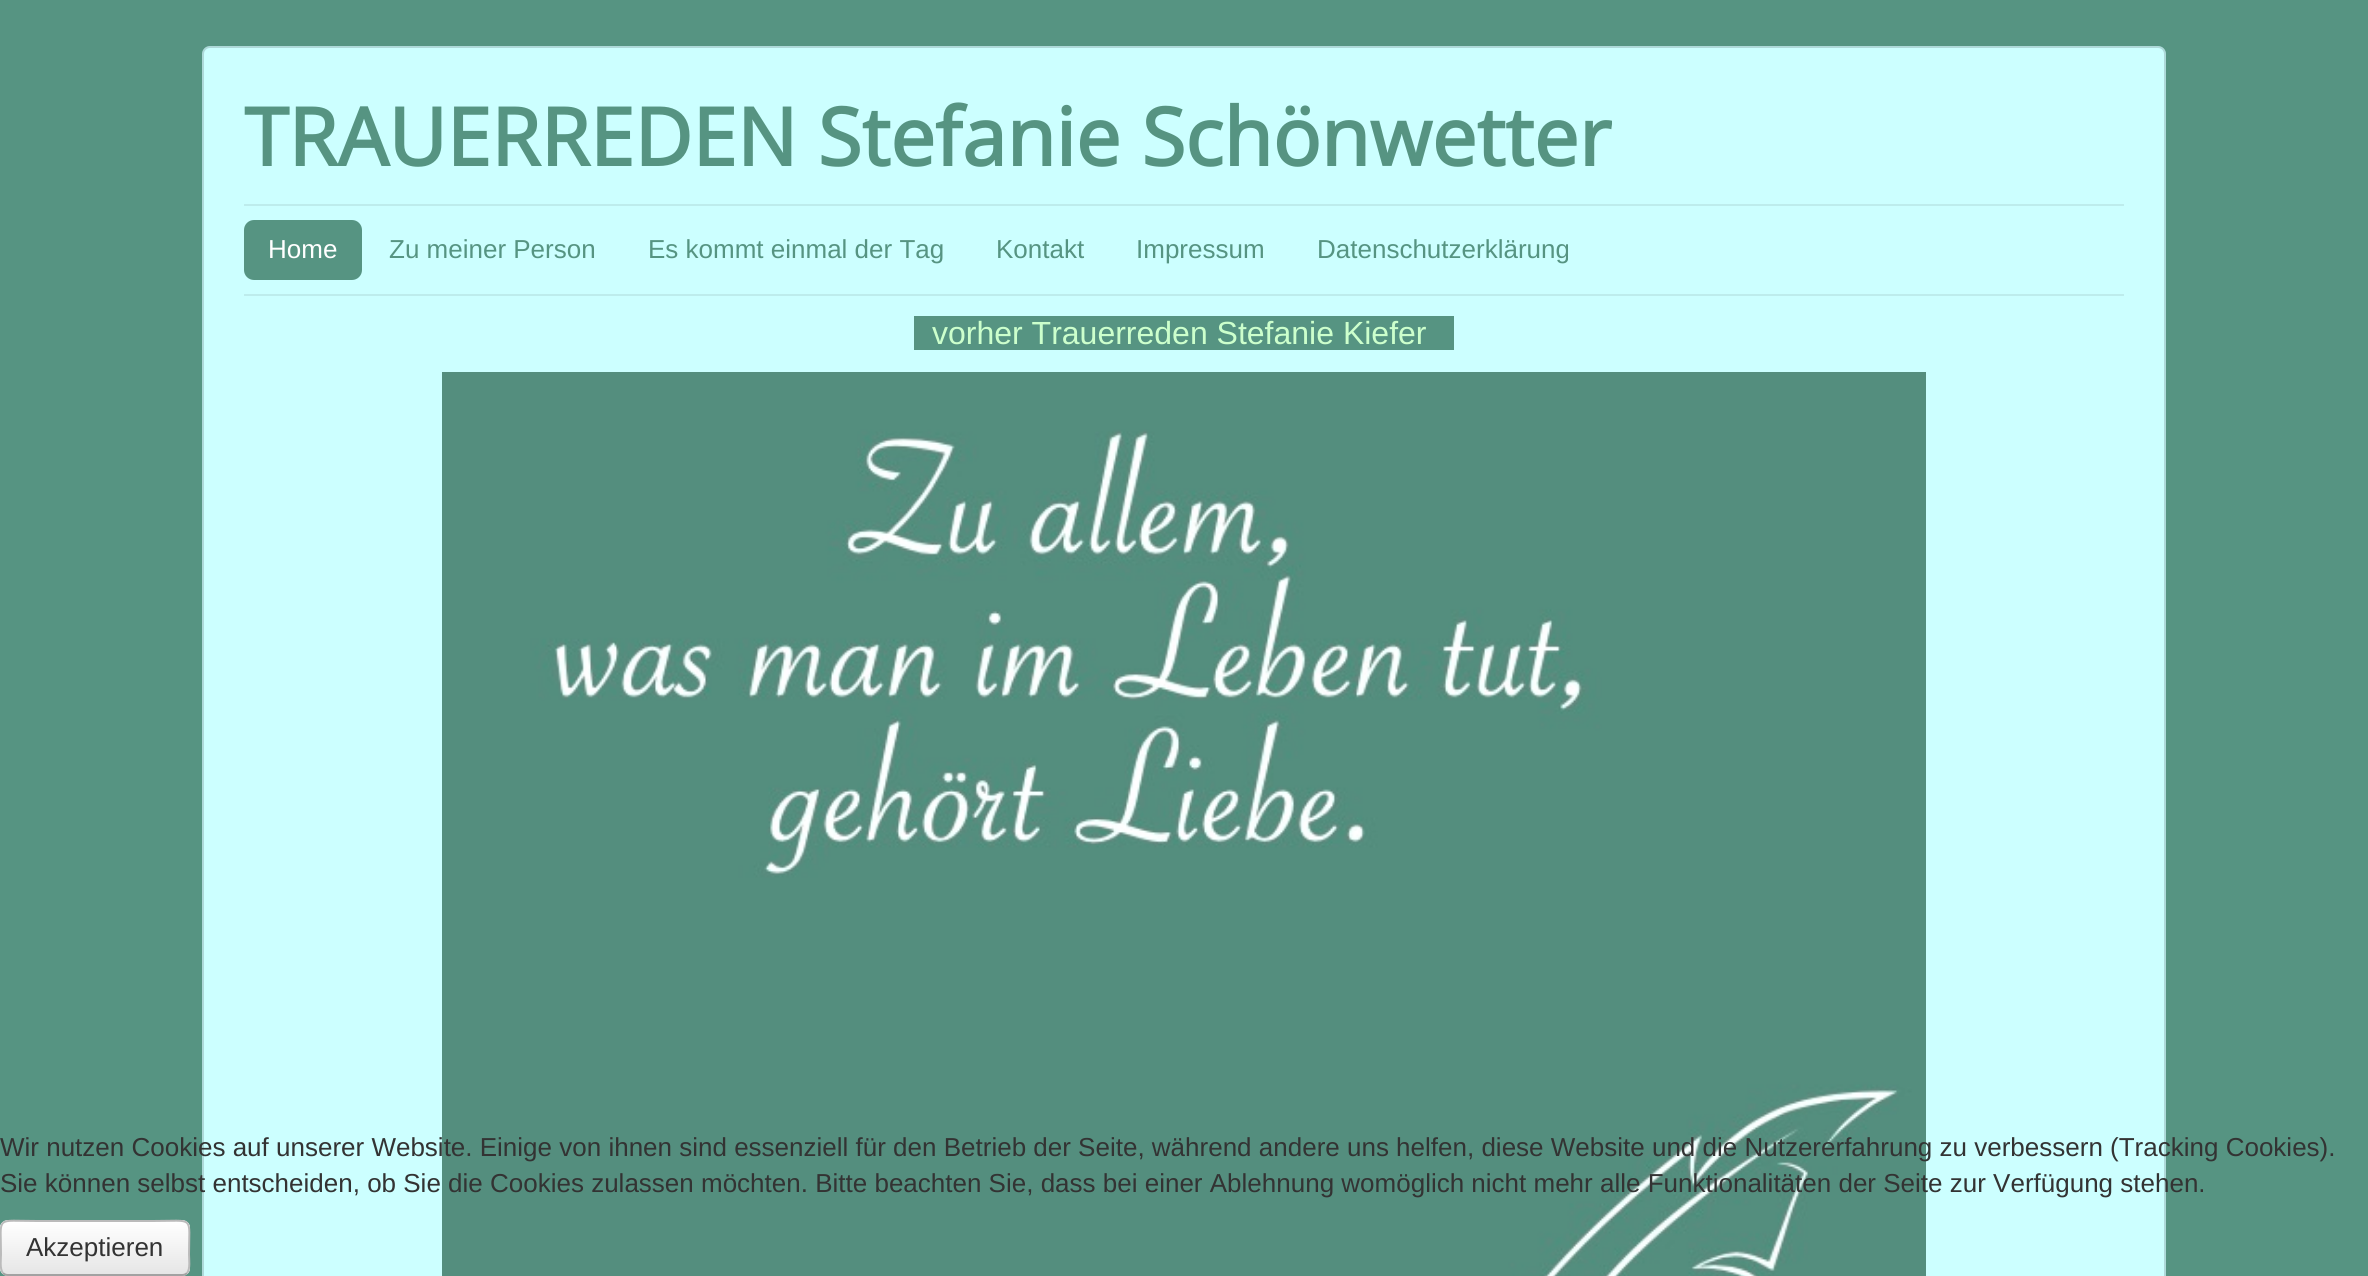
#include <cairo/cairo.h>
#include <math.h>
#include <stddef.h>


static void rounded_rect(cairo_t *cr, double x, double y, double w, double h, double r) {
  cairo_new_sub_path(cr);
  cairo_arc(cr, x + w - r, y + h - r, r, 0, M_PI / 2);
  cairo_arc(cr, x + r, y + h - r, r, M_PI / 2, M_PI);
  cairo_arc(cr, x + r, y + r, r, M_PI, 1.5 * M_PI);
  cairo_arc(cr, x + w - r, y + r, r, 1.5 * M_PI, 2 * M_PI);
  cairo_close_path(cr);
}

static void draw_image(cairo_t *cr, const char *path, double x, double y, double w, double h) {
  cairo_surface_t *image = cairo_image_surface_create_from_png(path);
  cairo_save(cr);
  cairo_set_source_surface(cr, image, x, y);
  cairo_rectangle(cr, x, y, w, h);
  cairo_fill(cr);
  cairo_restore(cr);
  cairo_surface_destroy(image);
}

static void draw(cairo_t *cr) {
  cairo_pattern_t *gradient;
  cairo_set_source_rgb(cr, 86 / 255.0, 148 / 255.0, 130 / 255.0);
  cairo_paint(cr);
  cairo_set_source_rgb(cr, 204 / 255.0, 1, 1);
  rounded_rect(cr, 202, 46, 1964, 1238, 8);
  cairo_fill(cr);
  rounded_rect(cr, 203, 47, 1962, 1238, 7);
  cairo_set_source_rgba(cr, 0, 0, 0, 0.15);
  cairo_stroke(cr);
  cairo_set_source_rgb(cr, 189 / 255.0, 236 / 255.0, 236 / 255.0);
  cairo_rectangle(cr, 244, 204, 1880, 2);
  cairo_fill(cr);
  cairo_rectangle(cr, 244, 294, 1880, 2);
  cairo_fill(cr);
  cairo_set_source_rgb(cr, 86 / 255.0, 148 / 255.0, 130 / 255.0);
  rounded_rect(cr, 244, 220, 118, 60, 10);
  cairo_fill(cr);
  cairo_rectangle(cr, 914, 316, 540, 34);
  cairo_fill(cr);
  draw_image(cr, "images/1.png", 442, 372, 1484, 904);
  cairo_set_source_rgb(cr, 245 / 255.0, 245 / 255.0, 245 / 255.0);
  rounded_rect(cr, 0, 1220, 190, 56, 8);
  cairo_fill(cr);
  cairo_save(cr);
  rounded_rect(cr, 0, 1220, 190, 56, 8);
  cairo_clip(cr);
  gradient = cairo_pattern_create_linear(95, 1222, 95, 1274);
  cairo_pattern_add_color_stop_rgba(gradient, 0, 1, 1, 1, 1);
  cairo_pattern_add_color_stop_rgba(gradient, 1, 230 / 255.0, 230 / 255.0, 230 / 255.0, 1);
  cairo_set_source(cr, gradient);
  cairo_pattern_destroy(gradient);
  cairo_rectangle(cr, 0, 1222, 190, 52);
  cairo_fill(cr);
  cairo_restore(cr);
  cairo_new_path(cr);
  cairo_move_to(cr, 187, 1273);
  cairo_curve_to(cr, 185.5, 1274.5, 184, 1275, 182, 1275);
  cairo_line_to(cr, 8, 1275);
  cairo_curve_to(cr, 6, 1275, 4.5, 1274.5, 3, 1273);
  cairo_set_source_rgb(cr, 162 / 255.0, 162 / 255.0, 162 / 255.0);
  cairo_stroke(cr);
  cairo_new_path(cr);
  cairo_move_to(cr, 3, 1273);
  cairo_curve_to(cr, -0.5, 1269, 1, 1259, 1, 1254.5);
  cairo_curve_to(cr, 1, 1215, -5.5, 1221, 37, 1221);
  cairo_line_to(cr, 153, 1221);
  cairo_curve_to(cr, 195.5, 1221, 189, 1215, 189, 1254.5);
  cairo_curve_to(cr, 189, 1259, 190.5, 1269, 187, 1273);
  cairo_set_source_rgb(cr, 187 / 255.0, 187 / 255.0, 187 / 255.0);
  cairo_stroke(cr);
  cairo_select_font_face(cr, "Open Sans", CAIRO_FONT_SLANT_NORMAL, CAIRO_FONT_WEIGHT_BOLD);
  cairo_set_font_size(cr, 80);
  cairo_set_source_rgb(cr, 86 / 255.0, 148 / 255.0, 130 / 255.0);
  cairo_move_to(cr, 244, 166);
  cairo_show_text(cr, "TRAUERREDEN Stefanie Schönwetter");
  cairo_select_font_face(cr, "Liberation Sans", CAIRO_FONT_SLANT_NORMAL, CAIRO_FONT_WEIGHT_NORMAL);
  cairo_set_font_size(cr, 26);
  cairo_set_source_rgb(cr, 1, 1, 1);
  cairo_move_to(cr, 268, 258);
  cairo_show_text(cr, "Home");
  cairo_set_source_rgb(cr, 86 / 255.0, 148 / 255.0, 130 / 255.0);
  cairo_move_to(cr, 389, 258);
  cairo_show_text(cr, "Zu meiner Person");
  cairo_move_to(cr, 648, 258);
  cairo_show_text(cr, "Es kommt einmal der Tag");
  cairo_move_to(cr, 996, 258);
  cairo_show_text(cr, "Kontakt");
  cairo_move_to(cr, 1136, 258);
  cairo_show_text(cr, "Impressum");
  cairo_move_to(cr, 1317, 258);
  cairo_show_text(cr, "Datenschutzerklärung");
  cairo_set_font_size(cr, 32);
  cairo_set_source_rgb(cr, 204 / 255.0, 1, 204 / 255.0);
  cairo_move_to(cr, 932, 344);
  cairo_show_text(cr, "vorher Trauerreden Stefanie Kiefer");
  cairo_set_font_size(cr, 26);
  cairo_set_source_rgb(cr, 51 / 255.0, 51 / 255.0, 51 / 255.0);
  cairo_move_to(cr, 0, 1156);
  cairo_show_text(cr, "Wir nutzen Cookies auf unserer Website. Einige von ihnen sind essenziell für den Betrieb der Seite, während andere uns helfen, diese Website und die Nutzererfahrung zu verbessern (Tracking Cookies).");
  cairo_move_to(cr, 0, 1192);
  cairo_show_text(cr, "Sie können selbst entscheiden, ob Sie die Cookies zulassen möchten. Bitte beachten Sie, dass bei einer Ablehnung womöglich nicht mehr alle Funktionalitäten der Seite zur Verfügung stehen.");
  cairo_move_to(cr, 26, 1256);
  cairo_show_text(cr, "Akzeptieren");
}

int main(void) {
  cairo_surface_t *surface = cairo_image_surface_create(CAIRO_FORMAT_RGB24, 2368, 1276);
  cairo_t *cr = cairo_create(surface);
  cairo_font_options_t *options = cairo_font_options_create();
  cairo_font_options_set_hint_metrics(options, CAIRO_HINT_METRICS_OFF);
  cairo_font_options_set_hint_style(options, CAIRO_HINT_STYLE_NONE);
  cairo_set_font_options(cr, options);
  cairo_set_miter_limit(cr, 4);
  draw(cr);
  cairo_surface_write_to_png(surface, "out.png");
  cairo_font_options_destroy(options);
  cairo_destroy(cr);
  cairo_surface_destroy(surface);
  return 0;
}
